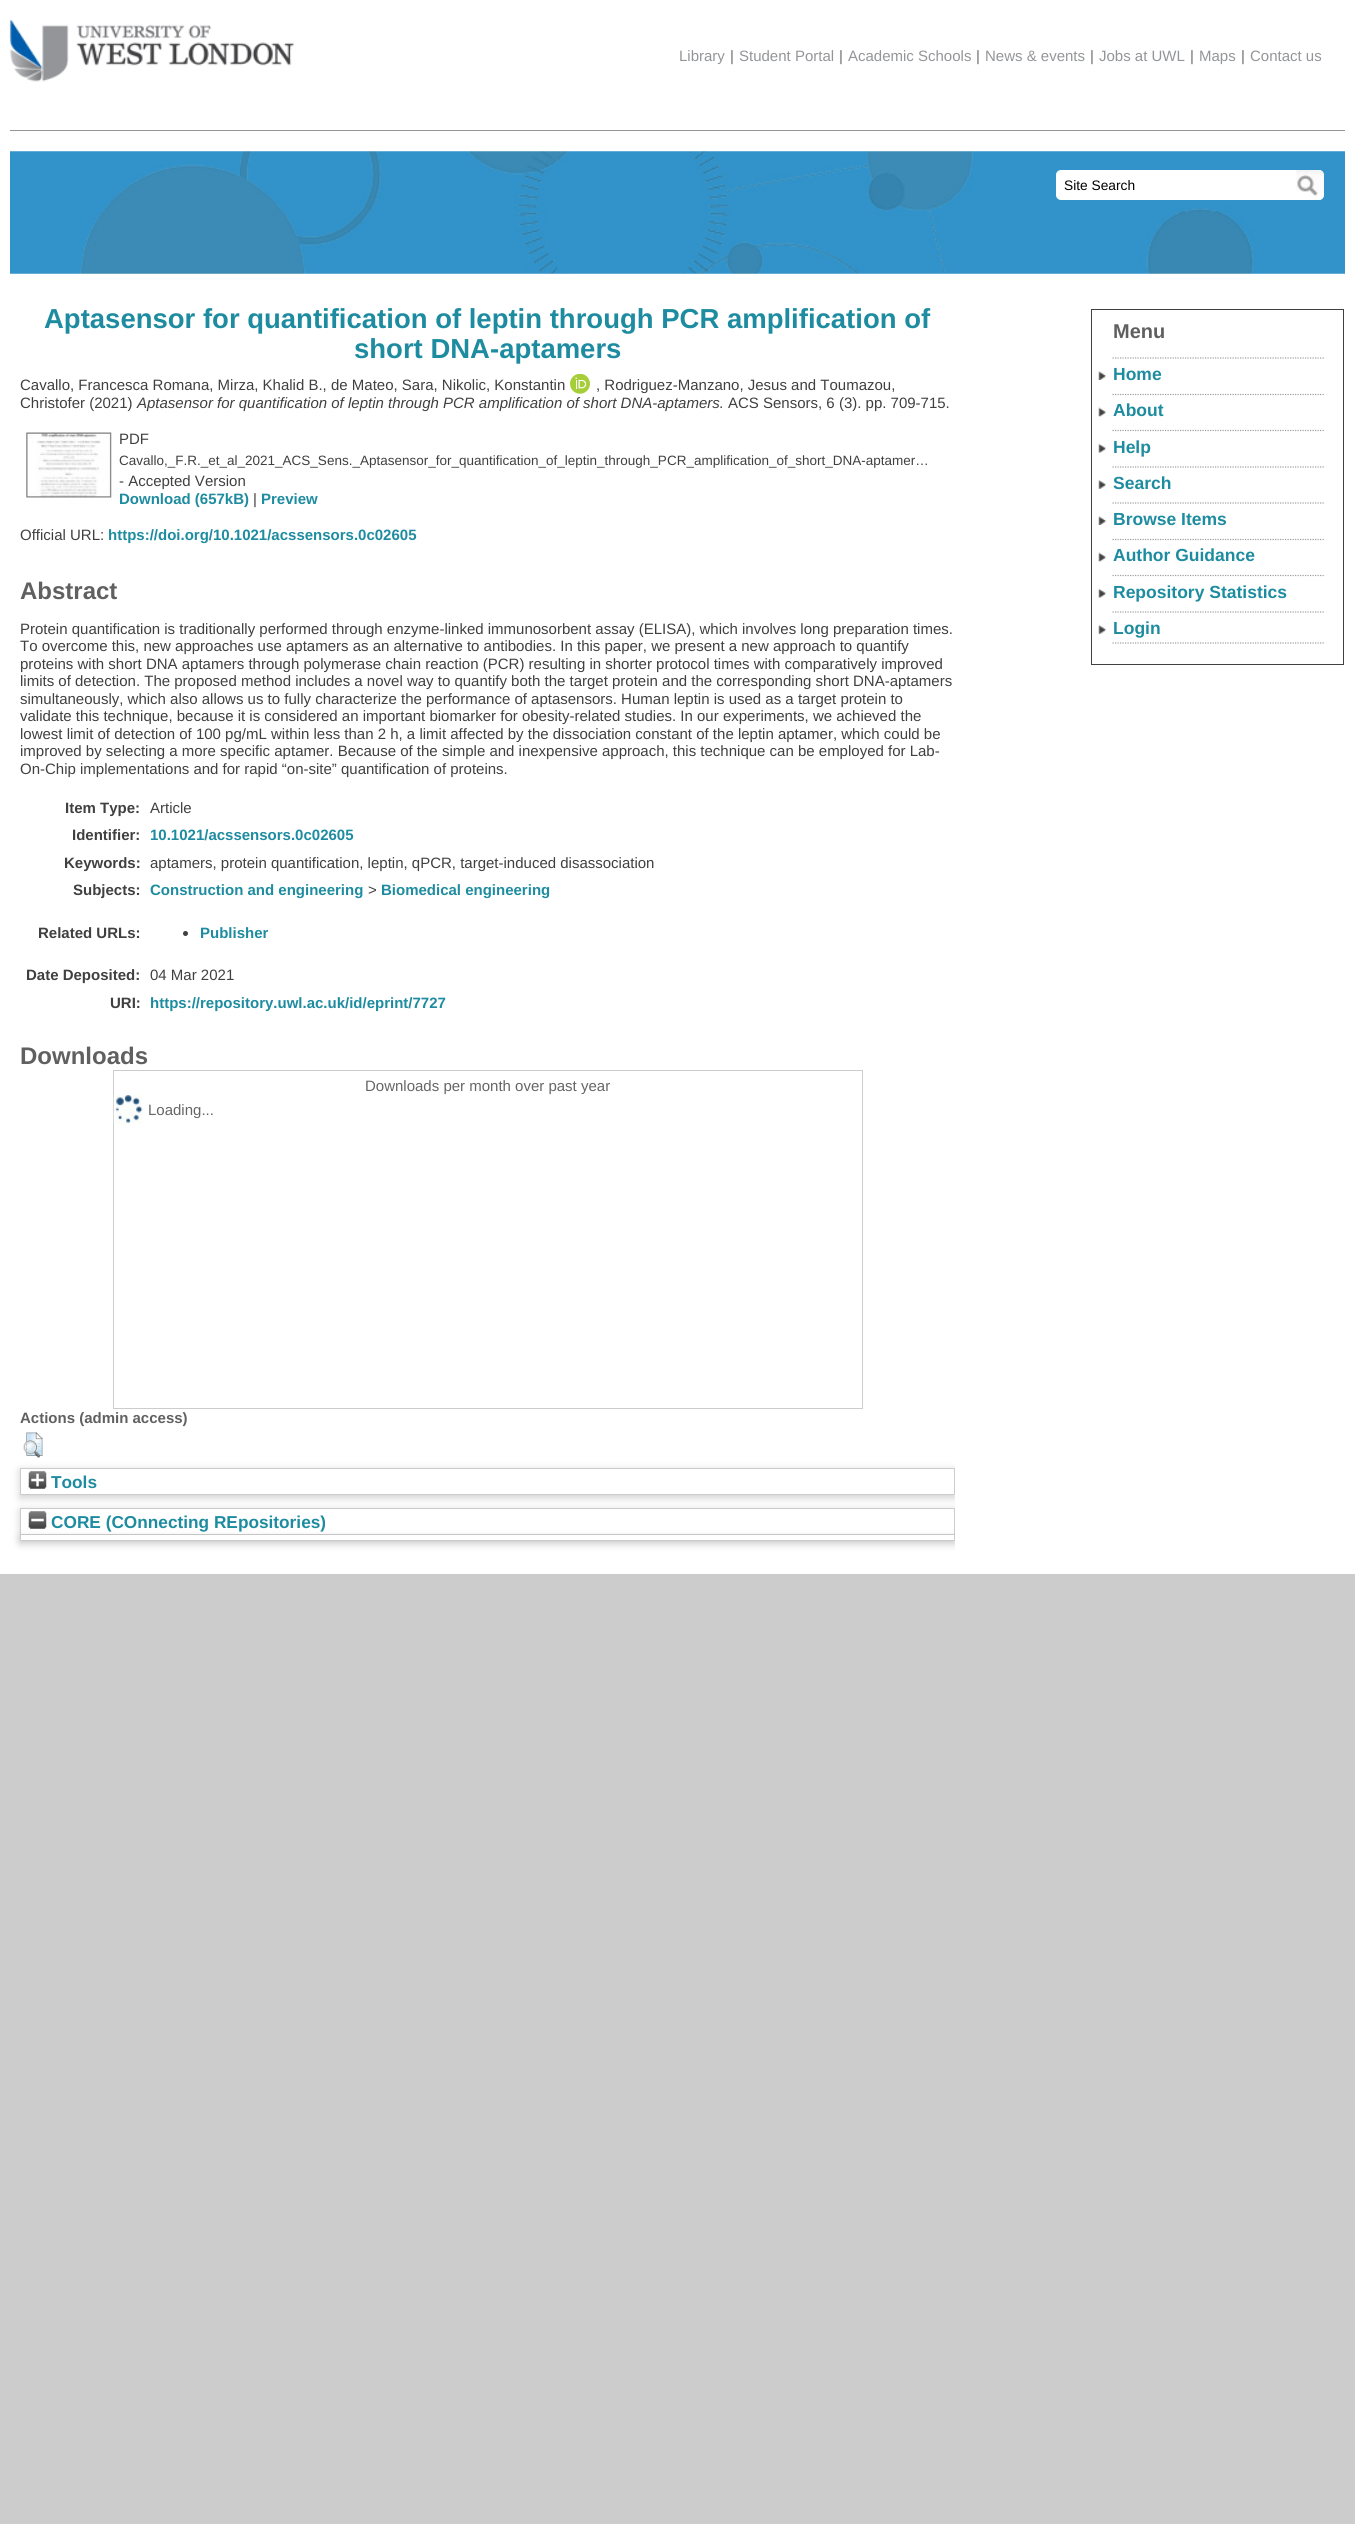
#include <cairo/cairo.h>
#include <math.h>
#include <stddef.h>


static void rounded_rect(cairo_t *cr, double x, double y, double w, double h, double r) {
  cairo_new_sub_path(cr);
  cairo_arc(cr, x + w - r, y + h - r, r, 0, M_PI / 2);
  cairo_arc(cr, x + r, y + h - r, r, M_PI / 2, M_PI);
  cairo_arc(cr, x + r, y + r, r, M_PI, 1.5 * M_PI);
  cairo_arc(cr, x + w - r, y + r, r, 1.5 * M_PI, 2 * M_PI);
  cairo_close_path(cr);
}

static void draw_shadow(cairo_t *cr, double x, double y, double w, double h, double r, double blur, double alpha) {
  cairo_push_group_with_content(cr, CAIRO_CONTENT_ALPHA);
  cairo_set_operator(cr, CAIRO_OPERATOR_SOURCE);
  for (int i = 15; i >= -15 && fmin(w, h) + blur * i / 3 > 0; i -= 2) {
    double e = blur * i / 6;
    cairo_set_source_rgba(cr, 0, 0, 0, alpha * erfc((i - 1) / 8.5) / 2);
    rounded_rect(cr, x - e, y - e, w + 2 * e, h + 2 * e, fmax(0, fmin(r + e + blur * .6, fmin(w, h) / 2 + e)));
    cairo_fill(cr);
  }
  cairo_pattern_t *soft = cairo_pop_group(cr);
  cairo_mask(cr, soft);
  cairo_pattern_destroy(soft);
}

static void draw_image(cairo_t *cr, const char *path, double x, double y, double w, double h) {
  cairo_surface_t *image = cairo_image_surface_create_from_png(path);
  cairo_save(cr);
  cairo_set_source_surface(cr, image, x, y);
  cairo_rectangle(cr, x, y, w, h);
  cairo_fill(cr);
  cairo_restore(cr);
  cairo_surface_destroy(image);
}

static void draw(cairo_t *cr) {
  cairo_set_source_rgb(cr, 204 / 255.0, 204 / 255.0, 204 / 255.0);
  cairo_paint(cr);
  cairo_set_source_rgb(cr, 1, 1, 1);
  cairo_rectangle(cr, 0, 0, 1355, 1574);
  cairo_fill(cr);
  cairo_set_source_rgb(cr, 147 / 255.0, 149 / 255.0, 152 / 255.0);
  cairo_rectangle(cr, 10, 130, 1335, 1);
  cairo_fill(cr);
  draw_image(cr, "images/1.png", 9, 19, 285, 63);
  draw_image(cr, "images/3.png", 10, 151, 1335, 123);
  cairo_set_source_rgb(cr, 1, 1, 1);
  rounded_rect(cr, 1056, 170, 268, 30, 5);
  cairo_fill(cr);
  draw_image(cr, "images/2.png", 1296, 170, 28, 30);
  draw_image(cr, "images/4.png", 570, 374, 20, 20);
  draw_image(cr, "images/5.png", 26, 432, 86, 66);
  cairo_set_source_rgb(cr, 64 / 255.0, 64 / 255.0, 65 / 255.0);
  cairo_arc(cr, 185.5, 933.5, 2.5, 0, 2 * M_PI);
  cairo_fill(cr);
  cairo_rectangle(cr, 113.5, 1070.5, 749, 338);
  cairo_set_source_rgb(cr, 204 / 255.0, 204 / 255.0, 204 / 255.0);
  cairo_set_line_width(cr, 1);
  cairo_stroke(cr);
  draw_image(cr, "images/6.png", 113, 1095, 30, 29);
  cairo_save(cr);
  cairo_rectangle(cr, 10, 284, 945, 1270);
  cairo_clip(cr);
  cairo_set_fill_rule(cr, CAIRO_FILL_RULE_EVEN_ODD);
  cairo_new_path(cr);
  cairo_move_to(cr, 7, 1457);
  cairo_line_to(cr, 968, 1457);
  cairo_line_to(cr, 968, 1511);
  cairo_line_to(cr, 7, 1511);
  cairo_close_path(cr);
  cairo_move_to(cr, 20, 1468);
  cairo_line_to(cr, 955, 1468);
  cairo_line_to(cr, 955, 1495);
  cairo_line_to(cr, 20, 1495);
  cairo_close_path(cr);
  cairo_clip(cr);
  cairo_set_source_rgb(cr, 100 / 255.0, 100 / 255.0, 100 / 255.0);
  draw_shadow(cr, 20, 1470, 935, 28, 0, 4, 0.3);
  cairo_restore(cr);
  draw_image(cr, "images/7.png", 23, 1432, 20, 26);
  cairo_rectangle(cr, 20.5, 1468.5, 934, 26);
  cairo_stroke(cr);
  draw_image(cr, "images/8.png", 28, 1471, 19, 18);
  cairo_save(cr);
  cairo_rectangle(cr, 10, 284, 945, 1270);
  cairo_clip(cr);
  cairo_set_fill_rule(cr, CAIRO_FILL_RULE_EVEN_ODD);
  cairo_new_path(cr);
  cairo_move_to(cr, 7, 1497);
  cairo_line_to(cr, 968, 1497);
  cairo_line_to(cr, 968, 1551);
  cairo_line_to(cr, 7, 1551);
  cairo_close_path(cr);
  cairo_move_to(cr, 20, 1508);
  cairo_line_to(cr, 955, 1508);
  cairo_line_to(cr, 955, 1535);
  cairo_line_to(cr, 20, 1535);
  cairo_close_path(cr);
  cairo_clip(cr);
  cairo_set_source_rgb(cr, 100 / 255.0, 100 / 255.0, 100 / 255.0);
  draw_shadow(cr, 20, 1510, 935, 28, 0, 4, 0.3);
  cairo_restore(cr);
  cairo_rectangle(cr, 20.5, 1508.5, 934, 26);
  cairo_stroke(cr);
  cairo_save(cr);
  cairo_rectangle(cr, 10, 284, 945, 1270);
  cairo_clip(cr);
  cairo_set_source_rgb(cr, 100 / 255.0, 100 / 255.0, 100 / 255.0);
  draw_shadow(cr, 20, 1538, 935, 6, 0, 4, 0.3);
  cairo_restore(cr);
  draw_image(cr, "images/9.png", 28, 1511, 19, 18);
  cairo_set_source_rgb(cr, 1, 1, 1);
  cairo_rectangle(cr, 20, 1535, 935, 5);
  cairo_fill(cr);
  cairo_set_source_rgb(cr, 204 / 255.0, 204 / 255.0, 204 / 255.0);
  cairo_rectangle(cr, 954, 1535, 1, 6);
  cairo_fill(cr);
  cairo_rectangle(cr, 20, 1540, 935, 1);
  cairo_fill(cr);
  cairo_rectangle(cr, 20, 1535, 1, 6);
  cairo_fill(cr);
  cairo_rectangle(cr, 1091.5, 309.5, 252, 355);
  cairo_set_source_rgb(cr, 64 / 255.0, 64 / 255.0, 64 / 255.0);
  cairo_stroke(cr);
  draw_image(cr, "images/10.png", 1098, 371, 9, 9);
  cairo_new_path(cr);
  cairo_move_to(cr, 1112.5, 358);
  cairo_line_to(cr, 1325, 358);
  cairo_set_source_rgb(cr, 159 / 255.0, 159 / 255.0, 160 / 255.0);
  cairo_set_line_width(cr, 1.2);
  cairo_set_dash(cr, (double[]){1.25, 1.25}, 2, 0);
  cairo_stroke(cr);
  draw_image(cr, "images/11.png", 1098, 407, 9, 10);
  cairo_new_path(cr);
  cairo_move_to(cr, 1112.5, 394.5);
  cairo_line_to(cr, 1325, 394.5);
  cairo_stroke(cr);
  draw_image(cr, "images/12.png", 1098, 443, 9, 10);
  cairo_new_path(cr);
  cairo_move_to(cr, 1112.5, 430.5);
  cairo_line_to(cr, 1325, 430.5);
  cairo_stroke(cr);
  draw_image(cr, "images/13.png", 1098, 480, 9, 9);
  cairo_new_path(cr);
  cairo_move_to(cr, 1112.5, 467);
  cairo_line_to(cr, 1325, 467);
  cairo_stroke(cr);
  draw_image(cr, "images/10.png", 1098, 516, 9, 9);
  cairo_new_path(cr);
  cairo_move_to(cr, 1112.5, 503);
  cairo_line_to(cr, 1325, 503);
  cairo_stroke(cr);
  draw_image(cr, "images/11.png", 1098, 552, 9, 10);
  cairo_new_path(cr);
  cairo_move_to(cr, 1112.5, 539.5);
  cairo_line_to(cr, 1325, 539.5);
  cairo_stroke(cr);
  draw_image(cr, "images/12.png", 1098, 588, 9, 10);
  cairo_new_path(cr);
  cairo_move_to(cr, 1112.5, 575.5);
  cairo_line_to(cr, 1325, 575.5);
  cairo_stroke(cr);
  draw_image(cr, "images/13.png", 1098, 625, 9, 9);
  cairo_new_path(cr);
  cairo_move_to(cr, 1112.5, 612);
  cairo_line_to(cr, 1325, 612);
  cairo_stroke(cr);
  cairo_new_path(cr);
  cairo_move_to(cr, 1112.5, 643);
  cairo_line_to(cr, 1325, 643);
  cairo_stroke(cr);
  cairo_select_font_face(cr, "Liberation Sans", CAIRO_FONT_SLANT_NORMAL, CAIRO_FONT_WEIGHT_NORMAL);
  cairo_set_font_size(cr, 15);
  cairo_set_source_rgb(cr, 147 / 255.0, 149 / 255.0, 152 / 255.0);
  cairo_move_to(cr, 679, 61);
  cairo_show_text(cr, "Library");
  cairo_set_source_rgb(cr, 109 / 255.0, 110 / 255.0, 113 / 255.0);
  cairo_move_to(cr, 730, 61);
  cairo_show_text(cr, "|");
  cairo_set_source_rgb(cr, 147 / 255.0, 149 / 255.0, 152 / 255.0);
  cairo_move_to(cr, 739, 61);
  cairo_show_text(cr, "Student Portal");
  cairo_set_source_rgb(cr, 109 / 255.0, 110 / 255.0, 113 / 255.0);
  cairo_move_to(cr, 839, 61);
  cairo_show_text(cr, "|");
  cairo_set_source_rgb(cr, 147 / 255.0, 149 / 255.0, 152 / 255.0);
  cairo_move_to(cr, 848, 61);
  cairo_show_text(cr, "Academic Schools");
  cairo_set_source_rgb(cr, 109 / 255.0, 110 / 255.0, 113 / 255.0);
  cairo_move_to(cr, 976, 61);
  cairo_show_text(cr, "|");
  cairo_set_source_rgb(cr, 147 / 255.0, 149 / 255.0, 152 / 255.0);
  cairo_move_to(cr, 985, 61);
  cairo_show_text(cr, "News & events");
  cairo_set_source_rgb(cr, 109 / 255.0, 110 / 255.0, 113 / 255.0);
  cairo_move_to(cr, 1090, 61);
  cairo_show_text(cr, "|");
  cairo_set_source_rgb(cr, 147 / 255.0, 149 / 255.0, 152 / 255.0);
  cairo_move_to(cr, 1099, 61);
  cairo_show_text(cr, "Jobs at UWL");
  cairo_set_source_rgb(cr, 109 / 255.0, 110 / 255.0, 113 / 255.0);
  cairo_move_to(cr, 1190, 61);
  cairo_show_text(cr, "|");
  cairo_set_source_rgb(cr, 147 / 255.0, 149 / 255.0, 152 / 255.0);
  cairo_move_to(cr, 1199, 61);
  cairo_show_text(cr, "Maps");
  cairo_set_source_rgb(cr, 109 / 255.0, 110 / 255.0, 113 / 255.0);
  cairo_move_to(cr, 1241, 61);
  cairo_show_text(cr, "|");
  cairo_set_source_rgb(cr, 147 / 255.0, 149 / 255.0, 152 / 255.0);
  cairo_move_to(cr, 1250, 61);
  cairo_show_text(cr, "Contact us");
  cairo_set_font_size(cr, 13.75);
  cairo_set_source_rgb(cr, 0, 0, 0);
  cairo_move_to(cr, 1064, 190);
  cairo_show_text(cr, "Site Search");
  cairo_select_font_face(cr, "Liberation Sans", CAIRO_FONT_SLANT_NORMAL, CAIRO_FONT_WEIGHT_BOLD);
  cairo_set_font_size(cr, 27.5);
  cairo_set_source_rgb(cr, 30 / 255.0, 140 / 255.0, 160 / 255.0);
  cairo_move_to(cr, 44, 328);
  cairo_show_text(cr, "Aptasensor for quantification of leptin through PCR amplification of");
  cairo_move_to(cr, 354, 358);
  cairo_show_text(cr, "short DNA-aptamers");
  cairo_select_font_face(cr, "Liberation Sans", CAIRO_FONT_SLANT_NORMAL, CAIRO_FONT_WEIGHT_NORMAL);
  cairo_set_font_size(cr, 15);
  cairo_set_source_rgb(cr, 64 / 255.0, 64 / 255.0, 65 / 255.0);
  cairo_move_to(cr, 20, 390);
  cairo_show_text(cr, "Cavallo, Francesca Romana, Mirza, Khalid B., de Mateo, Sara, Nikolic, Konstantin");
  cairo_move_to(cr, 596, 390);
  cairo_show_text(cr, ", Rodriguez-Manzano, Jesus and Toumazou,");
  cairo_move_to(cr, 20, 408);
  cairo_show_text(cr, "Christofer (2021)");
  cairo_select_font_face(cr, "Liberation Sans", CAIRO_FONT_SLANT_ITALIC, CAIRO_FONT_WEIGHT_NORMAL);
  cairo_move_to(cr, 137, 408);
  cairo_show_text(cr, "Aptasensor for quantification of leptin through PCR amplification of short DNA-aptamers.");
  cairo_select_font_face(cr, "Liberation Sans", CAIRO_FONT_SLANT_NORMAL, CAIRO_FONT_WEIGHT_NORMAL);
  cairo_move_to(cr, 728, 408);
  cairo_show_text(cr, "ACS Sensors, 6 (3). pp. 709-715.");
  cairo_move_to(cr, 119, 444);
  cairo_show_text(cr, "PDF");
  cairo_set_font_size(cr, 13.5);
  cairo_move_to(cr, 119, 465);
  cairo_show_text(cr, "Cavallo,_F.R._et_al_2021_ACS_Sens._Aptasensor_for_quantification_of_leptin_through_PCR_amplification_of_short_DNA-aptamer…");
  cairo_set_font_size(cr, 15);
  cairo_move_to(cr, 119, 486);
  cairo_show_text(cr, "- Accepted Version");
  cairo_select_font_face(cr, "Liberation Sans", CAIRO_FONT_SLANT_NORMAL, CAIRO_FONT_WEIGHT_BOLD);
  cairo_set_source_rgb(cr, 30 / 255.0, 140 / 255.0, 160 / 255.0);
  cairo_move_to(cr, 119, 504);
  cairo_show_text(cr, "Download (657kB)");
  cairo_select_font_face(cr, "Liberation Sans", CAIRO_FONT_SLANT_NORMAL, CAIRO_FONT_WEIGHT_NORMAL);
  cairo_set_source_rgb(cr, 64 / 255.0, 64 / 255.0, 65 / 255.0);
  cairo_move_to(cr, 253, 504);
  cairo_show_text(cr, "|");
  cairo_select_font_face(cr, "Liberation Sans", CAIRO_FONT_SLANT_NORMAL, CAIRO_FONT_WEIGHT_BOLD);
  cairo_set_source_rgb(cr, 30 / 255.0, 140 / 255.0, 160 / 255.0);
  cairo_move_to(cr, 261, 504);
  cairo_show_text(cr, "Preview");
  cairo_select_font_face(cr, "Liberation Sans", CAIRO_FONT_SLANT_NORMAL, CAIRO_FONT_WEIGHT_NORMAL);
  cairo_set_source_rgb(cr, 64 / 255.0, 64 / 255.0, 65 / 255.0);
  cairo_move_to(cr, 20, 540);
  cairo_show_text(cr, "Official URL:");
  cairo_select_font_face(cr, "Liberation Sans", CAIRO_FONT_SLANT_NORMAL, CAIRO_FONT_WEIGHT_BOLD);
  cairo_set_source_rgb(cr, 30 / 255.0, 140 / 255.0, 160 / 255.0);
  cairo_move_to(cr, 108, 540);
  cairo_show_text(cr, "https://doi.org/10.1021/acssensors.0c02605");
  cairo_set_font_size(cr, 24);
  cairo_set_source_rgb(cr, 96 / 255.0, 96 / 255.0, 96 / 255.0);
  cairo_move_to(cr, 20, 599);
  cairo_show_text(cr, "Abstract");
  cairo_select_font_face(cr, "Liberation Sans", CAIRO_FONT_SLANT_NORMAL, CAIRO_FONT_WEIGHT_NORMAL);
  cairo_set_font_size(cr, 15);
  cairo_set_source_rgb(cr, 64 / 255.0, 64 / 255.0, 65 / 255.0);
  cairo_move_to(cr, 20, 634);
  cairo_show_text(cr, "Protein quantification is traditionally performed through enzyme-linked immunosorbent assay (ELISA), which involves long preparation times.");
  cairo_move_to(cr, 20, 651);
  cairo_show_text(cr, "To overcome this, new approaches use aptamers as an alternative to antibodies. In this paper, we present a new approach to quantify");
  cairo_move_to(cr, 20, 669);
  cairo_show_text(cr, "proteins with short DNA aptamers through polymerase chain reaction (PCR) resulting in shorter protocol times with comparatively improved");
  cairo_move_to(cr, 20, 686);
  cairo_show_text(cr, "limits of detection. The proposed method includes a novel way to quantify both the target protein and the corresponding short DNA-aptamers");
  cairo_move_to(cr, 20, 704);
  cairo_show_text(cr, "simultaneously, which also allows us to fully characterize the performance of aptasensors. Human leptin is used as a target protein to");
  cairo_move_to(cr, 20, 721);
  cairo_show_text(cr, "validate this technique, because it is considered an important biomarker for obesity-related studies. In our experiments, we achieved the");
  cairo_move_to(cr, 20, 739);
  cairo_show_text(cr, "lowest limit of detection of 100 pg/mL within less than 2 h, a limit affected by the dissociation constant of the leptin aptamer, which could be");
  cairo_move_to(cr, 20, 756);
  cairo_show_text(cr, "improved by selecting a more specific aptamer. Because of the simple and inexpensive approach, this technique can be employed for Lab-");
  cairo_move_to(cr, 20, 774);
  cairo_show_text(cr, "On-Chip implementations and for rapid “on-site” quantification of proteins.");
  cairo_select_font_face(cr, "Liberation Sans", CAIRO_FONT_SLANT_NORMAL, CAIRO_FONT_WEIGHT_BOLD);
  cairo_move_to(cr, 65, 813);
  cairo_show_text(cr, "Item Type:");
  cairo_select_font_face(cr, "Liberation Sans", CAIRO_FONT_SLANT_NORMAL, CAIRO_FONT_WEIGHT_NORMAL);
  cairo_move_to(cr, 150, 813);
  cairo_show_text(cr, "Article");
  cairo_select_font_face(cr, "Liberation Sans", CAIRO_FONT_SLANT_NORMAL, CAIRO_FONT_WEIGHT_BOLD);
  cairo_move_to(cr, 72, 840);
  cairo_show_text(cr, "Identifier:");
  cairo_set_source_rgb(cr, 30 / 255.0, 140 / 255.0, 160 / 255.0);
  cairo_move_to(cr, 150, 840);
  cairo_show_text(cr, "10.1021/acssensors.0c02605");
  cairo_set_source_rgb(cr, 64 / 255.0, 64 / 255.0, 65 / 255.0);
  cairo_move_to(cr, 64, 868);
  cairo_show_text(cr, "Keywords:");
  cairo_select_font_face(cr, "Liberation Sans", CAIRO_FONT_SLANT_NORMAL, CAIRO_FONT_WEIGHT_NORMAL);
  cairo_move_to(cr, 150, 868);
  cairo_show_text(cr, "aptamers, protein quantification, leptin, qPCR, target-induced disassociation");
  cairo_select_font_face(cr, "Liberation Sans", CAIRO_FONT_SLANT_NORMAL, CAIRO_FONT_WEIGHT_BOLD);
  cairo_move_to(cr, 73, 895);
  cairo_show_text(cr, "Subjects:");
  cairo_set_source_rgb(cr, 30 / 255.0, 140 / 255.0, 160 / 255.0);
  cairo_move_to(cr, 150, 895);
  cairo_show_text(cr, "Construction and engineering");
  cairo_select_font_face(cr, "Liberation Sans", CAIRO_FONT_SLANT_NORMAL, CAIRO_FONT_WEIGHT_NORMAL);
  cairo_set_source_rgb(cr, 64 / 255.0, 64 / 255.0, 65 / 255.0);
  cairo_move_to(cr, 368, 895);
  cairo_show_text(cr, ">");
  cairo_select_font_face(cr, "Liberation Sans", CAIRO_FONT_SLANT_NORMAL, CAIRO_FONT_WEIGHT_BOLD);
  cairo_set_source_rgb(cr, 30 / 255.0, 140 / 255.0, 160 / 255.0);
  cairo_move_to(cr, 381, 895);
  cairo_show_text(cr, "Biomedical engineering");
  cairo_set_source_rgb(cr, 64 / 255.0, 64 / 255.0, 65 / 255.0);
  cairo_move_to(cr, 38, 938);
  cairo_show_text(cr, "Related URLs:");
  cairo_set_source_rgb(cr, 30 / 255.0, 140 / 255.0, 160 / 255.0);
  cairo_move_to(cr, 200, 938);
  cairo_show_text(cr, "Publisher");
  cairo_set_source_rgb(cr, 64 / 255.0, 64 / 255.0, 65 / 255.0);
  cairo_move_to(cr, 26, 980);
  cairo_show_text(cr, "Date Deposited:");
  cairo_select_font_face(cr, "Liberation Sans", CAIRO_FONT_SLANT_NORMAL, CAIRO_FONT_WEIGHT_NORMAL);
  cairo_move_to(cr, 150, 980);
  cairo_show_text(cr, "04 Mar 2021");
  cairo_select_font_face(cr, "Liberation Sans", CAIRO_FONT_SLANT_NORMAL, CAIRO_FONT_WEIGHT_BOLD);
  cairo_move_to(cr, 110, 1008);
  cairo_show_text(cr, "URI:");
  cairo_set_source_rgb(cr, 30 / 255.0, 140 / 255.0, 160 / 255.0);
  cairo_move_to(cr, 150, 1008);
  cairo_show_text(cr, "https://repository.uwl.ac.uk/id/eprint/7727");
  cairo_set_font_size(cr, 24);
  cairo_set_source_rgb(cr, 96 / 255.0, 96 / 255.0, 96 / 255.0);
  cairo_move_to(cr, 20, 1064);
  cairo_show_text(cr, "Downloads");
  cairo_select_font_face(cr, "Liberation Sans", CAIRO_FONT_SLANT_NORMAL, CAIRO_FONT_WEIGHT_NORMAL);
  cairo_set_font_size(cr, 15);
  cairo_set_source_rgb(cr, 102 / 255.0, 102 / 255.0, 102 / 255.0);
  cairo_move_to(cr, 365, 1091);
  cairo_show_text(cr, "Downloads per month over past year");
  cairo_move_to(cr, 148, 1115);
  cairo_show_text(cr, "Loading...");
  cairo_select_font_face(cr, "Liberation Sans", CAIRO_FONT_SLANT_NORMAL, CAIRO_FONT_WEIGHT_BOLD);
  cairo_set_source_rgb(cr, 96 / 255.0, 96 / 255.0, 96 / 255.0);
  cairo_move_to(cr, 20, 1423);
  cairo_show_text(cr, "Actions (admin access)");
  cairo_set_font_size(cr, 17.25);
  cairo_set_source_rgb(cr, 30 / 255.0, 140 / 255.0, 160 / 255.0);
  cairo_move_to(cr, 51, 1488);
  cairo_show_text(cr, "Tools");
  cairo_move_to(cr, 51, 1528);
  cairo_show_text(cr, "CORE (COnnecting REpositories)");
  cairo_set_font_size(cr, 20);
  cairo_set_source_rgb(cr, 96 / 255.0, 96 / 255.0, 96 / 255.0);
  cairo_move_to(cr, 1113, 338);
  cairo_show_text(cr, "Menu");
  cairo_set_font_size(cr, 17.5);
  cairo_set_source_rgb(cr, 30 / 255.0, 140 / 255.0, 160 / 255.0);
  cairo_move_to(cr, 1113, 380);
  cairo_show_text(cr, "Home");
  cairo_move_to(cr, 1113, 416);
  cairo_show_text(cr, "About");
  cairo_move_to(cr, 1113, 453);
  cairo_show_text(cr, "Help");
  cairo_move_to(cr, 1113, 489);
  cairo_show_text(cr, "Search");
  cairo_move_to(cr, 1113, 525);
  cairo_show_text(cr, "Browse Items");
  cairo_move_to(cr, 1113, 561);
  cairo_show_text(cr, "Author Guidance");
  cairo_move_to(cr, 1113, 598);
  cairo_show_text(cr, "Repository Statistics");
  cairo_move_to(cr, 1113, 634);
  cairo_show_text(cr, "Login");
}

int main(void) {
  cairo_surface_t *surface = cairo_image_surface_create(CAIRO_FORMAT_RGB24, 1355, 2524);
  cairo_t *cr = cairo_create(surface);
  cairo_font_options_t *options = cairo_font_options_create();
  cairo_font_options_set_hint_metrics(options, CAIRO_HINT_METRICS_OFF);
  cairo_font_options_set_hint_style(options, CAIRO_HINT_STYLE_NONE);
  cairo_set_font_options(cr, options);
  cairo_set_miter_limit(cr, 4);
  draw(cr);
  cairo_surface_write_to_png(surface, "out.png");
  cairo_font_options_destroy(options);
  cairo_destroy(cr);
  cairo_surface_destroy(surface);
  return 0;
}
